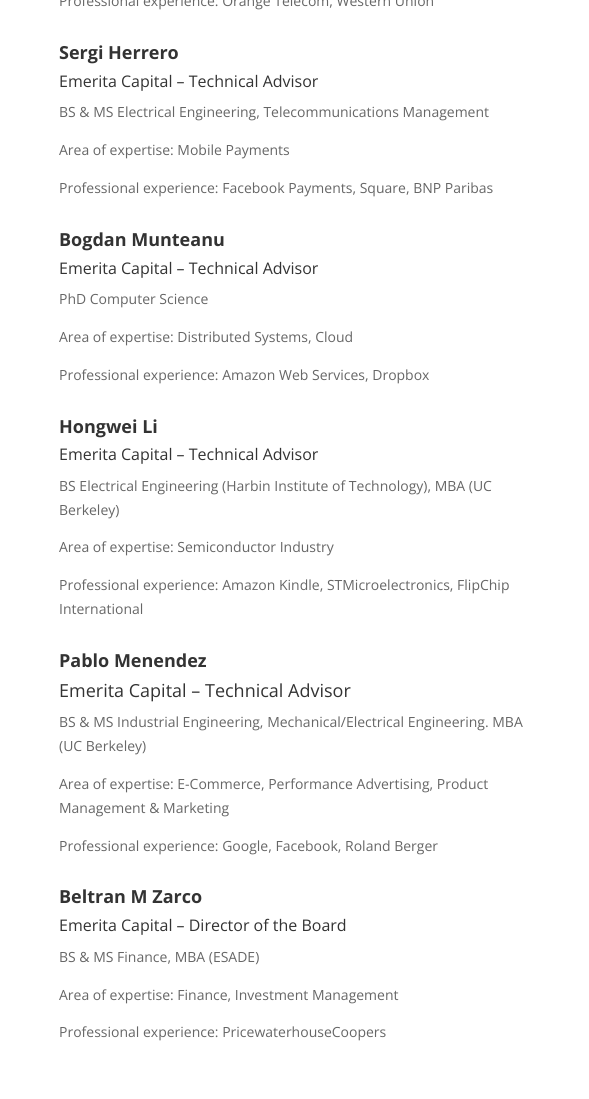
#include <cairo/cairo.h>
#include <math.h>
#include <stddef.h>


static void draw(cairo_t *cr) {
  cairo_set_source_rgb(cr, 1, 1, 1);
  cairo_paint(cr);
  cairo_select_font_face(cr, "Open Sans", CAIRO_FONT_SLANT_NORMAL, CAIRO_FONT_WEIGHT_NORMAL);
  cairo_set_font_size(cr, 14);
  cairo_set_source_rgb(cr, 102 / 255.0, 102 / 255.0, 102 / 255.0);
  cairo_move_to(cr, 59, 6);
  cairo_show_text(cr, "Professional experience: Orange Telecom, Western Union");
  cairo_select_font_face(cr, "Open Sans", CAIRO_FONT_SLANT_NORMAL, CAIRO_FONT_WEIGHT_BOLD);
  cairo_set_font_size(cr, 18);
  cairo_set_source_rgb(cr, 51 / 255.0, 51 / 255.0, 51 / 255.0);
  cairo_move_to(cr, 59, 59);
  cairo_show_text(cr, "Sergi Herrero");
  cairo_select_font_face(cr, "Open Sans", CAIRO_FONT_SLANT_NORMAL, CAIRO_FONT_WEIGHT_NORMAL);
  cairo_set_font_size(cr, 16);
  cairo_move_to(cr, 59, 87);
  cairo_show_text(cr, "Emerita Capital – Technical Advisor");
  cairo_set_font_size(cr, 14);
  cairo_set_source_rgb(cr, 102 / 255.0, 102 / 255.0, 102 / 255.0);
  cairo_move_to(cr, 59, 117);
  cairo_show_text(cr, "BS & MS Electrical Engineering, Telecommunications Management");
  cairo_move_to(cr, 59, 155);
  cairo_show_text(cr, "Area of expertise: Mobile Payments");
  cairo_move_to(cr, 59, 193);
  cairo_show_text(cr, "Professional experience: Facebook Payments, Square, BNP Paribas");
  cairo_select_font_face(cr, "Open Sans", CAIRO_FONT_SLANT_NORMAL, CAIRO_FONT_WEIGHT_BOLD);
  cairo_set_font_size(cr, 18);
  cairo_set_source_rgb(cr, 51 / 255.0, 51 / 255.0, 51 / 255.0);
  cairo_move_to(cr, 59, 246);
  cairo_show_text(cr, "Bogdan Munteanu");
  cairo_select_font_face(cr, "Open Sans", CAIRO_FONT_SLANT_NORMAL, CAIRO_FONT_WEIGHT_NORMAL);
  cairo_set_font_size(cr, 16);
  cairo_move_to(cr, 59, 274);
  cairo_show_text(cr, "Emerita Capital – Technical Advisor");
  cairo_set_font_size(cr, 14);
  cairo_set_source_rgb(cr, 102 / 255.0, 102 / 255.0, 102 / 255.0);
  cairo_move_to(cr, 59, 304);
  cairo_show_text(cr, "PhD Computer Science");
  cairo_move_to(cr, 59, 342);
  cairo_show_text(cr, "Area of expertise: Distributed Systems, Cloud");
  cairo_move_to(cr, 59, 380);
  cairo_show_text(cr, "Professional experience: Amazon Web Services, Dropbox");
  cairo_select_font_face(cr, "Open Sans", CAIRO_FONT_SLANT_NORMAL, CAIRO_FONT_WEIGHT_BOLD);
  cairo_set_font_size(cr, 18);
  cairo_set_source_rgb(cr, 51 / 255.0, 51 / 255.0, 51 / 255.0);
  cairo_move_to(cr, 59, 433);
  cairo_show_text(cr, "Hongwei Li");
  cairo_select_font_face(cr, "Open Sans", CAIRO_FONT_SLANT_NORMAL, CAIRO_FONT_WEIGHT_NORMAL);
  cairo_set_font_size(cr, 16);
  cairo_move_to(cr, 59, 460);
  cairo_show_text(cr, "Emerita Capital – Technical Advisor");
  cairo_set_font_size(cr, 14);
  cairo_set_source_rgb(cr, 102 / 255.0, 102 / 255.0, 102 / 255.0);
  cairo_move_to(cr, 59, 491);
  cairo_show_text(cr, "BS Electrical Engineering (Harbin Institute of Technology), MBA (UC");
  cairo_move_to(cr, 59, 515);
  cairo_show_text(cr, "Berkeley)");
  cairo_move_to(cr, 59, 552);
  cairo_show_text(cr, "Area of expertise: Semiconductor Industry");
  cairo_move_to(cr, 59, 590);
  cairo_show_text(cr, "Professional experience: Amazon Kindle, STMicroelectronics, FlipChip");
  cairo_move_to(cr, 59, 614);
  cairo_show_text(cr, "International");
  cairo_select_font_face(cr, "Open Sans", CAIRO_FONT_SLANT_NORMAL, CAIRO_FONT_WEIGHT_BOLD);
  cairo_set_font_size(cr, 18);
  cairo_set_source_rgb(cr, 51 / 255.0, 51 / 255.0, 51 / 255.0);
  cairo_move_to(cr, 59, 667);
  cairo_show_text(cr, "Pablo Menendez");
  cairo_select_font_face(cr, "Open Sans", CAIRO_FONT_SLANT_NORMAL, CAIRO_FONT_WEIGHT_NORMAL);
  cairo_move_to(cr, 59, 697);
  cairo_show_text(cr, "Emerita Capital – Technical Advisor");
  cairo_set_font_size(cr, 14);
  cairo_set_source_rgb(cr, 102 / 255.0, 102 / 255.0, 102 / 255.0);
  cairo_move_to(cr, 59, 727);
  cairo_show_text(cr, "BS & MS Industrial Engineering, Mechanical/Electrical Engineering. MBA");
  cairo_move_to(cr, 59, 751);
  cairo_show_text(cr, "(UC Berkeley)");
  cairo_move_to(cr, 59, 789);
  cairo_show_text(cr, "Area of expertise: E-Commerce, Performance Advertising, Product");
  cairo_move_to(cr, 59, 813);
  cairo_show_text(cr, "Management & Marketing");
  cairo_move_to(cr, 59, 851);
  cairo_show_text(cr, "Professional experience: Google, Facebook, Roland Berger");
  cairo_select_font_face(cr, "Open Sans", CAIRO_FONT_SLANT_NORMAL, CAIRO_FONT_WEIGHT_BOLD);
  cairo_set_font_size(cr, 18);
  cairo_set_source_rgb(cr, 51 / 255.0, 51 / 255.0, 51 / 255.0);
  cairo_move_to(cr, 59, 903);
  cairo_show_text(cr, "Beltran M Zarco");
  cairo_select_font_face(cr, "Open Sans", CAIRO_FONT_SLANT_NORMAL, CAIRO_FONT_WEIGHT_NORMAL);
  cairo_set_font_size(cr, 16);
  cairo_move_to(cr, 59, 931);
  cairo_show_text(cr, "Emerita Capital – Director of the Board");
  cairo_set_font_size(cr, 14);
  cairo_set_source_rgb(cr, 102 / 255.0, 102 / 255.0, 102 / 255.0);
  cairo_move_to(cr, 59, 962);
  cairo_show_text(cr, "BS & MS Finance, MBA (ESADE)");
  cairo_move_to(cr, 59, 1000);
  cairo_show_text(cr, "Area of expertise: Finance, Investment Management");
  cairo_move_to(cr, 59, 1037);
  cairo_show_text(cr, "Professional experience: PricewaterhouseCoopers");
}

int main(void) {
  cairo_surface_t *surface = cairo_image_surface_create(CAIRO_FORMAT_RGB24, 589, 1099);
  cairo_t *cr = cairo_create(surface);
  cairo_font_options_t *options = cairo_font_options_create();
  cairo_font_options_set_hint_metrics(options, CAIRO_HINT_METRICS_OFF);
  cairo_font_options_set_hint_style(options, CAIRO_HINT_STYLE_NONE);
  cairo_set_font_options(cr, options);
  cairo_set_miter_limit(cr, 4);
  draw(cr);
  cairo_surface_write_to_png(surface, "out.png");
  cairo_font_options_destroy(options);
  cairo_destroy(cr);
  cairo_surface_destroy(surface);
  return 0;
}
